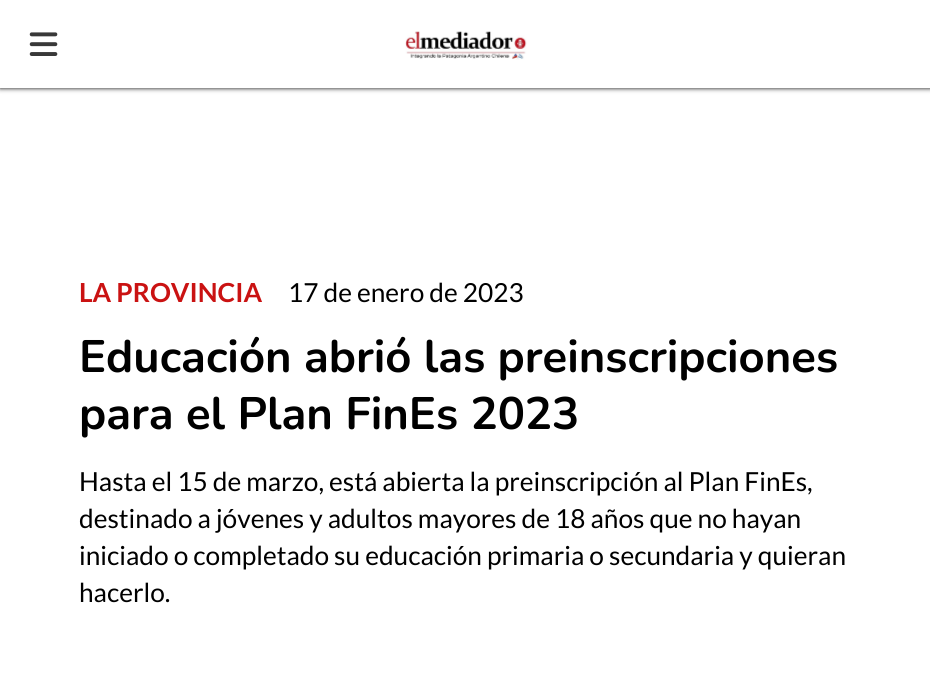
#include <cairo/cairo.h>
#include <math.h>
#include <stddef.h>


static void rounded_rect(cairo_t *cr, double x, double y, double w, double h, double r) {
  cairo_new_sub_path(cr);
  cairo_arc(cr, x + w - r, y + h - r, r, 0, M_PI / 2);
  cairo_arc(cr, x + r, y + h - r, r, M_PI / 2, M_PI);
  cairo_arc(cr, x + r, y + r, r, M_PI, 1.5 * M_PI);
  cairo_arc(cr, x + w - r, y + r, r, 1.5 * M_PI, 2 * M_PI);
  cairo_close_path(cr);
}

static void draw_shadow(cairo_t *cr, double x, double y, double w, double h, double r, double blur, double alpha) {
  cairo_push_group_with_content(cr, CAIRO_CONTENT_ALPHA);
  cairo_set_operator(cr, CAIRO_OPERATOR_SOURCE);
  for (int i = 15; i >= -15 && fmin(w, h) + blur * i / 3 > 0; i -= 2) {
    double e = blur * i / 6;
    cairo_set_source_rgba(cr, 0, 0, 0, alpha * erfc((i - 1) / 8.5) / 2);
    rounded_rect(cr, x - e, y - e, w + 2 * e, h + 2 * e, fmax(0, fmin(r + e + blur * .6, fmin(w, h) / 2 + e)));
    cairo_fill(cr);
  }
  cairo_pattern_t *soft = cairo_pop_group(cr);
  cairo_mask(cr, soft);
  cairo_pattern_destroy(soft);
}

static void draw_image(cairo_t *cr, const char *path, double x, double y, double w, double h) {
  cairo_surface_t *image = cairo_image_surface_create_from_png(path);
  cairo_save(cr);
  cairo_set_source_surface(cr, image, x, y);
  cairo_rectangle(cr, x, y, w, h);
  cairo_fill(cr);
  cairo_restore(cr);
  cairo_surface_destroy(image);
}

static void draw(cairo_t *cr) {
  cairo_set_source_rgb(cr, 1, 1, 1);
  cairo_paint(cr);
  cairo_set_source_rgb(cr, 0, 0, 0);
  draw_shadow(cr, 0, 0, 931, 88, 0, 2.5, 1);
  cairo_set_source_rgb(cr, 1, 1, 1);
  cairo_rectangle(cr, 0, 0, 930, 88);
  cairo_fill(cr);
  draw_image(cr, "images/1.png", 29, 32, 29, 24);
  draw_image(cr, "images/2.png", 405, 31, 122, 29);
  cairo_select_font_face(cr, "Lato", CAIRO_FONT_SLANT_NORMAL, CAIRO_FONT_WEIGHT_BOLD);
  cairo_set_font_size(cr, 26.25);
  cairo_set_source_rgb(cr, 202 / 255.0, 18 / 255.0, 18 / 255.0);
  cairo_move_to(cr, 79, 302);
  cairo_show_text(cr, "LA PROVINCIA");
  cairo_select_font_face(cr, "Lato", CAIRO_FONT_SLANT_NORMAL, CAIRO_FONT_WEIGHT_NORMAL);
  cairo_set_source_rgb(cr, 0, 0, 0);
  cairo_move_to(cr, 288, 302);
  cairo_show_text(cr, "17 de enero de 2023");
  cairo_select_font_face(cr, "Nunito", CAIRO_FONT_SLANT_NORMAL, CAIRO_FONT_WEIGHT_BOLD);
  cairo_set_font_size(cr, 45.4);
  cairo_move_to(cr, 79, 372);
  cairo_show_text(cr, "Educación abrió las preinscripciones");
  cairo_move_to(cr, 79, 429);
  cairo_show_text(cr, "para el Plan FinEs 2023");
  cairo_select_font_face(cr, "Lato", CAIRO_FONT_SLANT_NORMAL, CAIRO_FONT_WEIGHT_NORMAL);
  cairo_set_font_size(cr, 26.25);
  cairo_move_to(cr, 79, 491);
  cairo_show_text(cr, "Hasta el 15 de marzo, está abierta la preinscripción al Plan FinEs,");
  cairo_move_to(cr, 79, 528);
  cairo_show_text(cr, "destinado a jóvenes y adultos mayores de 18 años que no hayan");
  cairo_move_to(cr, 79, 565);
  cairo_show_text(cr, "iniciado o completado su educación primaria o secundaria y quieran");
  cairo_move_to(cr, 79, 602);
  cairo_show_text(cr, "hacerlo.");
}

int main(void) {
  cairo_surface_t *surface = cairo_image_surface_create(CAIRO_FORMAT_RGB24, 930, 680);
  cairo_t *cr = cairo_create(surface);
  cairo_font_options_t *options = cairo_font_options_create();
  cairo_font_options_set_hint_metrics(options, CAIRO_HINT_METRICS_OFF);
  cairo_font_options_set_hint_style(options, CAIRO_HINT_STYLE_NONE);
  cairo_set_font_options(cr, options);
  cairo_set_miter_limit(cr, 4);
  draw(cr);
  cairo_surface_write_to_png(surface, "out.png");
  cairo_font_options_destroy(options);
  cairo_destroy(cr);
  cairo_surface_destroy(surface);
  return 0;
}
